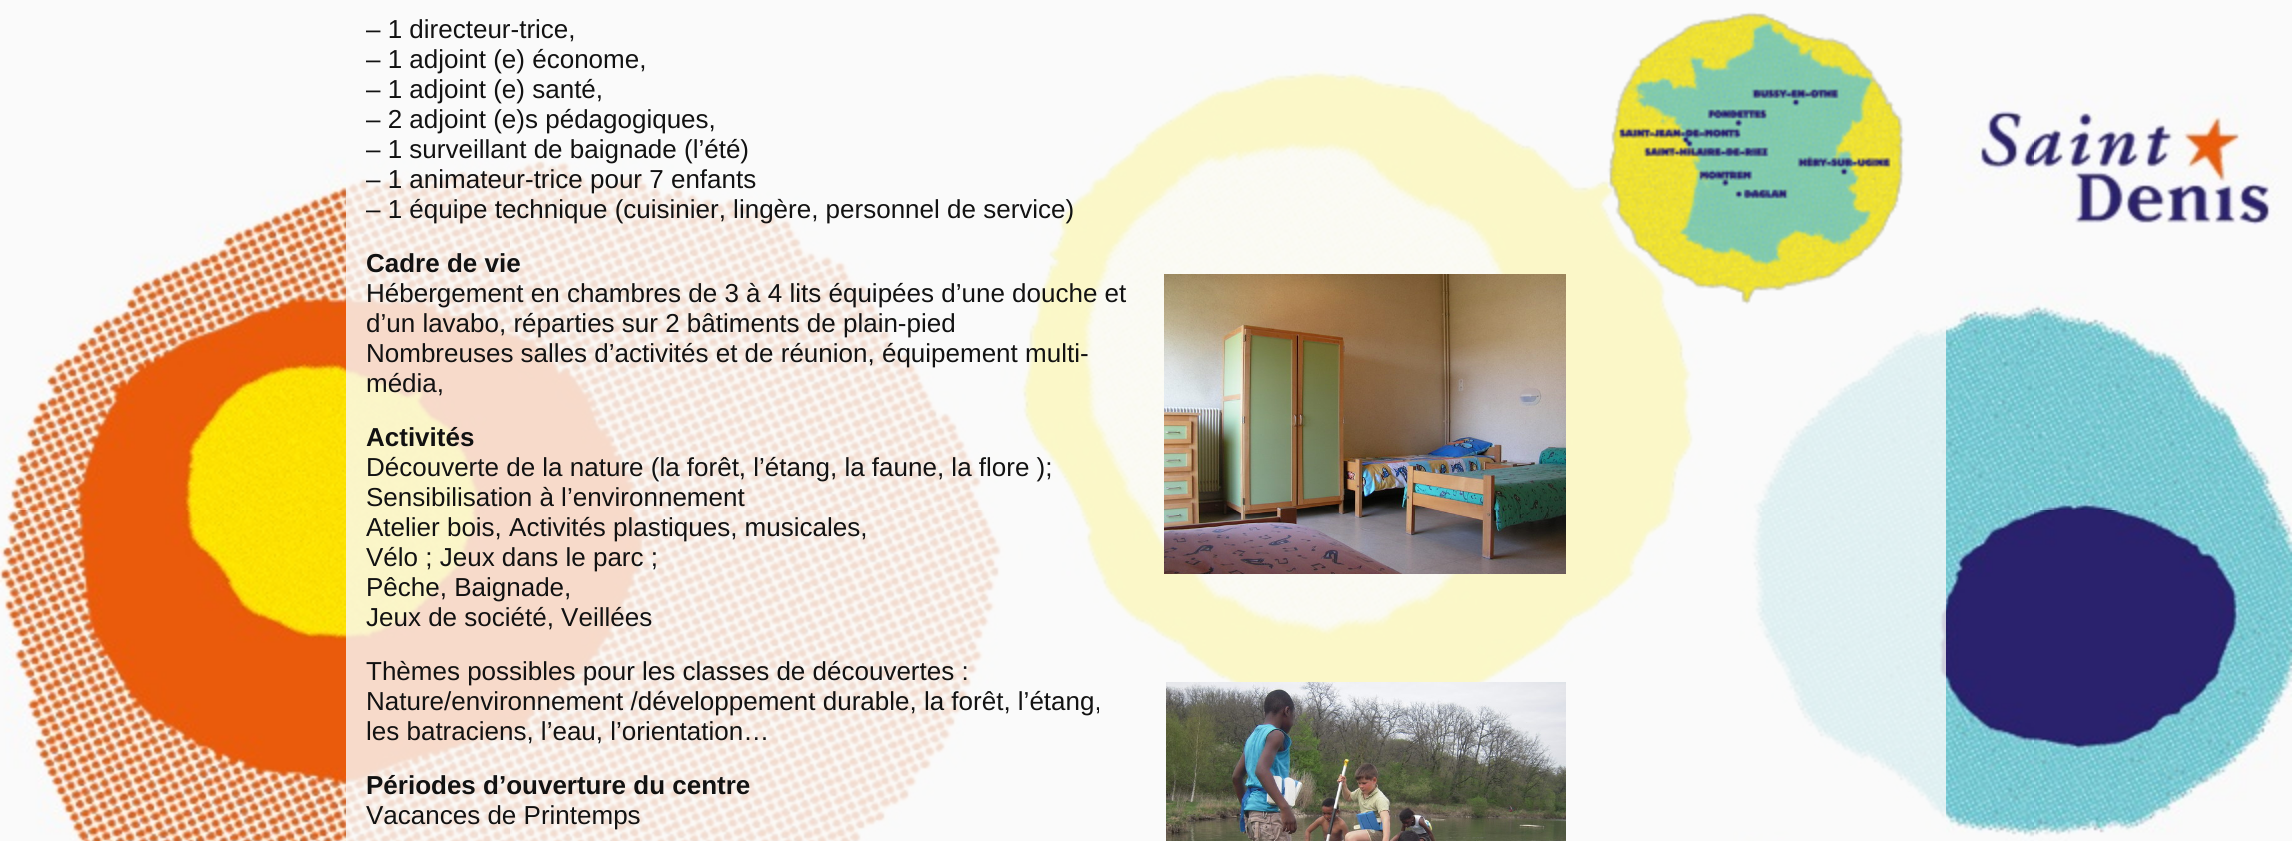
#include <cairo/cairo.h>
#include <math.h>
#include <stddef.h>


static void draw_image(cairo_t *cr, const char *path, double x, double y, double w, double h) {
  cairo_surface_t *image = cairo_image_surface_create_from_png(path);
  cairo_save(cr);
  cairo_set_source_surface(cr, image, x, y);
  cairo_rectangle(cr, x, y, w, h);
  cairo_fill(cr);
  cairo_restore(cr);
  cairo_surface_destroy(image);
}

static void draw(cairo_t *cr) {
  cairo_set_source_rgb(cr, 250 / 255.0, 250 / 255.0, 250 / 255.0);
  cairo_paint(cr);
  draw_image(cr, "images/1.png", 0, 64, 2292, 777);
  cairo_set_source_rgba(cr, 250 / 255.0, 250 / 255.0, 250 / 255.0, 0.8);
  cairo_rectangle(cr, 346, 64, 1600, 777);
  cairo_fill(cr);
  draw_image(cr, "images/2.png", 1164, 274, 402, 300);
  draw_image(cr, "images/3.png", 1166, 682, 400, 159);
  draw_image(cr, "images/4.png", 1607, 12, 298, 293);
  cairo_select_font_face(cr, "Liberation Sans", CAIRO_FONT_SLANT_NORMAL, CAIRO_FONT_WEIGHT_NORMAL);
  cairo_set_font_size(cr, 26);
  cairo_set_source_rgb(cr, 18 / 255.0, 18 / 255.0, 18 / 255.0);
  cairo_move_to(cr, 366, 38);
  cairo_show_text(cr, "– 1 directeur-trice,");
  cairo_move_to(cr, 366, 68);
  cairo_show_text(cr, "– 1 adjoint (e) économe,");
  cairo_move_to(cr, 366, 98);
  cairo_show_text(cr, "– 1 adjoint (e) santé,");
  cairo_move_to(cr, 366, 128);
  cairo_show_text(cr, "– 2 adjoint (e)s pédagogiques,");
  cairo_move_to(cr, 366, 158);
  cairo_show_text(cr, "– 1 surveillant de baignade (l’été)");
  cairo_move_to(cr, 366, 188);
  cairo_show_text(cr, "– 1 animateur-trice pour 7 enfants");
  cairo_move_to(cr, 366, 218);
  cairo_show_text(cr, "– 1 équipe technique (cuisinier, lingère, personnel de service)");
  cairo_select_font_face(cr, "Liberation Sans", CAIRO_FONT_SLANT_NORMAL, CAIRO_FONT_WEIGHT_BOLD);
  cairo_move_to(cr, 366, 272);
  cairo_show_text(cr, "Cadre de vie");
  cairo_select_font_face(cr, "Liberation Sans", CAIRO_FONT_SLANT_NORMAL, CAIRO_FONT_WEIGHT_NORMAL);
  cairo_move_to(cr, 366, 302);
  cairo_show_text(cr, "Hébergement en chambres de 3 à 4 lits équipées d’une douche et");
  cairo_move_to(cr, 366, 332);
  cairo_show_text(cr, "d’un lavabo, réparties sur 2 bâtiments de plain-pied");
  cairo_move_to(cr, 366, 362);
  cairo_show_text(cr, "Nombreuses salles d’activités et de réunion, équipement multi-");
  cairo_move_to(cr, 366, 392);
  cairo_show_text(cr, "média,");
  cairo_select_font_face(cr, "Liberation Sans", CAIRO_FONT_SLANT_NORMAL, CAIRO_FONT_WEIGHT_BOLD);
  cairo_move_to(cr, 366, 446);
  cairo_show_text(cr, "Activités");
  cairo_select_font_face(cr, "Liberation Sans", CAIRO_FONT_SLANT_NORMAL, CAIRO_FONT_WEIGHT_NORMAL);
  cairo_move_to(cr, 366, 476);
  cairo_show_text(cr, "Découverte de la nature (la forêt, l’étang, la faune, la flore );");
  cairo_move_to(cr, 366, 506);
  cairo_show_text(cr, "Sensibilisation à l’environnement");
  cairo_move_to(cr, 366, 536);
  cairo_show_text(cr, "Atelier bois, Activités plastiques, musicales,");
  cairo_move_to(cr, 366, 566);
  cairo_show_text(cr, "Vélo ; Jeux dans le parc ;");
  cairo_move_to(cr, 366, 596);
  cairo_show_text(cr, "Pêche, Baignade,");
  cairo_move_to(cr, 366, 626);
  cairo_show_text(cr, "Jeux de société, Veillées");
  cairo_move_to(cr, 366, 680);
  cairo_show_text(cr, "Thèmes possibles pour les classes de découvertes :");
  cairo_move_to(cr, 366, 710);
  cairo_show_text(cr, "Nature/environnement /développement durable, la forêt, l’étang,");
  cairo_move_to(cr, 366, 740);
  cairo_show_text(cr, "les batraciens, l’eau, l’orientation…");
  cairo_select_font_face(cr, "Liberation Sans", CAIRO_FONT_SLANT_NORMAL, CAIRO_FONT_WEIGHT_BOLD);
  cairo_move_to(cr, 366, 794);
  cairo_show_text(cr, "Périodes d’ouverture du centre");
  cairo_select_font_face(cr, "Liberation Sans", CAIRO_FONT_SLANT_NORMAL, CAIRO_FONT_WEIGHT_NORMAL);
  cairo_move_to(cr, 366, 824);
  cairo_show_text(cr, "Vacances de Printemps");
}

int main(void) {
  cairo_surface_t *surface = cairo_image_surface_create(CAIRO_FORMAT_RGB24, 2292, 841);
  cairo_t *cr = cairo_create(surface);
  cairo_font_options_t *options = cairo_font_options_create();
  cairo_font_options_set_hint_metrics(options, CAIRO_HINT_METRICS_OFF);
  cairo_font_options_set_hint_style(options, CAIRO_HINT_STYLE_NONE);
  cairo_set_font_options(cr, options);
  cairo_set_miter_limit(cr, 4);
  draw(cr);
  cairo_surface_write_to_png(surface, "out.png");
  cairo_font_options_destroy(options);
  cairo_destroy(cr);
  cairo_surface_destroy(surface);
  return 0;
}
